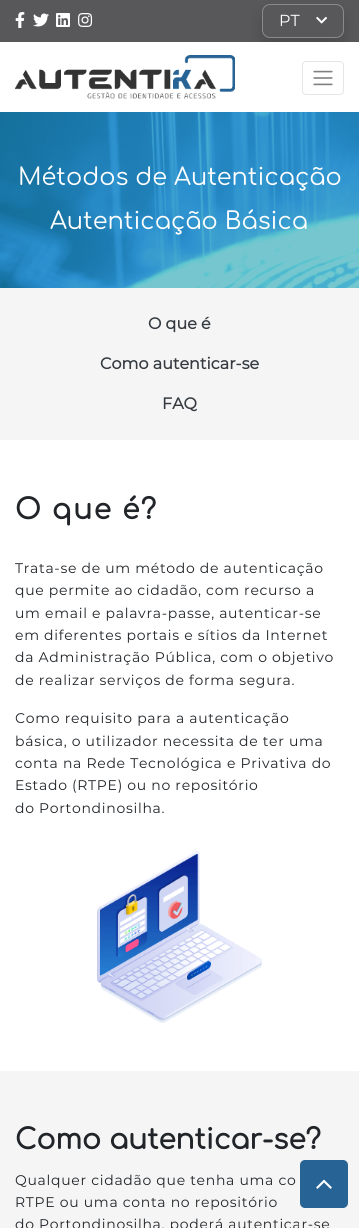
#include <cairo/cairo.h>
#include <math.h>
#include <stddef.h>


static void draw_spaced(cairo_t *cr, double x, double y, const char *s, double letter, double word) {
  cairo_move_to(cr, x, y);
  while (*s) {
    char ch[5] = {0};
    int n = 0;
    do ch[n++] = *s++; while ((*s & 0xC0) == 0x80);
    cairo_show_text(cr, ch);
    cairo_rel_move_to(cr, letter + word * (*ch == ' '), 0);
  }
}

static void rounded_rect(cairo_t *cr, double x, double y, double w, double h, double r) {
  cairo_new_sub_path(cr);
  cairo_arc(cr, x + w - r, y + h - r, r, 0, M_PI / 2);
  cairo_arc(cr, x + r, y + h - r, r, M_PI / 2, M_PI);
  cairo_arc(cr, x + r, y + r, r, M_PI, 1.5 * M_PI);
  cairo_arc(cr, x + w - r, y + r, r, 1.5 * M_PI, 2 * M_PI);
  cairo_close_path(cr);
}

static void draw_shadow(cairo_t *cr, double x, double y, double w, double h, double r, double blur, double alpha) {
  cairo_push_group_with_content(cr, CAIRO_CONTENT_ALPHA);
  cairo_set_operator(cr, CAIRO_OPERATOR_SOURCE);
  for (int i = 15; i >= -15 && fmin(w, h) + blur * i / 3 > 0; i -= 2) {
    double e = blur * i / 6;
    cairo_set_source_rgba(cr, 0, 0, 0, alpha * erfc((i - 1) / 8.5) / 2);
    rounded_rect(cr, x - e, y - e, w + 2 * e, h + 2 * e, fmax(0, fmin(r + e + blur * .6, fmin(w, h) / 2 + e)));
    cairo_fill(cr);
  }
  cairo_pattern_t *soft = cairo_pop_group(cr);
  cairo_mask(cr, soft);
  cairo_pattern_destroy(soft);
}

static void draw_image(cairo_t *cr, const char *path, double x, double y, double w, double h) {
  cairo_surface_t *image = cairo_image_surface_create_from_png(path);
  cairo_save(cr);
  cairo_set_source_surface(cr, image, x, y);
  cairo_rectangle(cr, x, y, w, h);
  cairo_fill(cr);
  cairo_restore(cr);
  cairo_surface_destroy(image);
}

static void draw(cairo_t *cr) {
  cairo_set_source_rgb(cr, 245 / 255.0, 245 / 255.0, 245 / 255.0);
  cairo_paint(cr);
  cairo_set_source_rgb(cr, 88 / 255.0, 88 / 255.0, 91 / 255.0);
  cairo_rectangle(cr, 0, 0, 359, 42);
  cairo_fill(cr);
  draw_image(cr, "images/1.png", 15, 12, 10, 16);
  draw_image(cr, "images/2.png", 33, 13, 16, 14);
  draw_image(cr, "images/3.png", 56, 13, 14, 14);
  draw_image(cr, "images/4.png", 78, 13, 15, 14);
  cairo_save(cr);
  cairo_set_fill_rule(cr, CAIRO_FILL_RULE_EVEN_ODD);
  cairo_new_path(cr);
  cairo_move_to(cr, 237, 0);
  cairo_line_to(cr, 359, 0);
  cairo_line_to(cr, 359, 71);
  cairo_line_to(cr, 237, 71);
  cairo_close_path(cr);
  cairo_move_to(cr, 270, 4);
  cairo_line_to(cr, 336, 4);
  cairo_curve_to(cr, 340.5, 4, 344, 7.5, 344, 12);
  cairo_line_to(cr, 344, 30);
  cairo_curve_to(cr, 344, 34.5, 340.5, 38, 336, 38);
  cairo_line_to(cr, 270, 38);
  cairo_curve_to(cr, 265.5, 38, 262, 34.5, 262, 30);
  cairo_line_to(cr, 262, 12);
  cairo_curve_to(cr, 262, 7.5, 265.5, 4, 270, 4);
  cairo_close_path(cr);
  cairo_clip(cr);
  cairo_set_source_rgb(cr, 0, 0, 0);
  draw_shadow(cr, 262, 12, 82, 34, 8, 8, 0.15);
  cairo_restore(cr);
  rounded_rect(cr, 262.5, 4.5, 81, 33, 7.5);
  cairo_set_source_rgba(cr, 1, 1, 1, 0.3);
  cairo_set_line_width(cr, 1);
  cairo_stroke(cr);
  draw_image(cr, "images/5.png", 316, 16, 11, 8);
  cairo_set_source_rgb(cr, 1, 1, 1);
  cairo_rectangle(cr, 0, 42, 359, 70);
  cairo_fill(cr);
  draw_image(cr, "images/6.png", 15, 55, 220, 44);
  rounded_rect(cr, 302.5, 61.5, 41, 33, 3.5);
  cairo_set_source_rgb(cr, 230 / 255.0, 230 / 255.0, 230 / 255.0);
  cairo_stroke(cr);
  draw_image(cr, "images/7.png", 313, 70, 20, 16);
  draw_image(cr, "images/8.png", 0, 112, 359, 176);
  cairo_set_source_rgb(cr, 1, 1, 1);
  cairo_rectangle(cr, 0, 440, 359, 631);
  cairo_fill(cr);
  draw_image(cr, "images/9.png", 97, 851, 165, 172);
  cairo_set_source_rgb(cr, 39 / 255.0, 100 / 255.0, 149 / 255.0);
  rounded_rect(cr, 300, 1160, 48, 48, 5);
  cairo_fill(cr);
  draw_image(cr, "images/10.png", 316, 1179, 16, 10);
  cairo_select_font_face(cr, "Montserrat", CAIRO_FONT_SLANT_NORMAL, CAIRO_FONT_WEIGHT_NORMAL);
  cairo_set_font_size(cr, 16);
  cairo_set_source_rgb(cr, 1, 1, 1);
  cairo_move_to(cr, 279, 26);
  cairo_show_text(cr, "PT");
  cairo_select_font_face(cr, "Comfortaa", CAIRO_FONT_SLANT_NORMAL, CAIRO_FONT_WEIGHT_NORMAL);
  cairo_set_font_size(cr, 24);
  cairo_move_to(cr, 18, 185);
  cairo_show_text(cr, "Métodos de Autenticação");
  cairo_move_to(cr, 50, 229);
  cairo_show_text(cr, "Autenticação Básica");
  cairo_select_font_face(cr, "Montserrat", CAIRO_FONT_SLANT_NORMAL, CAIRO_FONT_WEIGHT_BOLD);
  cairo_set_font_size(cr, 16);
  cairo_set_source_rgb(cr, 52 / 255.0, 58 / 255.0, 64 / 255.0);
  cairo_move_to(cr, 148, 329);
  cairo_show_text(cr, "O que é");
  cairo_move_to(cr, 100, 369);
  cairo_show_text(cr, "Como autenticar-se");
  cairo_move_to(cr, 162, 409);
  cairo_show_text(cr, "FAQ");
  cairo_select_font_face(cr, "Comfortaa", CAIRO_FONT_SLANT_NORMAL, CAIRO_FONT_WEIGHT_BOLD);
  cairo_set_font_size(cr, 28);
  cairo_set_source_rgb(cr, 33 / 255.0, 37 / 255.0, 41 / 255.0);
  draw_spaced(cr, 15, 519, "O que é?", 1.5, 0);
  cairo_select_font_face(cr, "Montserrat", CAIRO_FONT_SLANT_NORMAL, CAIRO_FONT_WEIGHT_NORMAL);
  cairo_set_font_size(cr, 14);
  draw_spaced(cr, 15, 573, "Trata-se de um método de autenticação", 0.7, 0);
  draw_spaced(cr, 15, 595, "que permite ao cidadão, com recurso a", 0.7, 0);
  draw_spaced(cr, 15, 618, "um email e palavra-passe, autenticar-se", 0.7, 0);
  draw_spaced(cr, 15, 640, "em diferentes portais e sítios da Internet", 0.7, 0);
  draw_spaced(cr, 15, 662, "da Administração Pública, com o objetivo", 0.7, 0);
  draw_spaced(cr, 15, 685, "de realizar serviços de forma segura.", 0.7, 0);
  draw_spaced(cr, 15, 723, "Como requisito para a autenticação", 0.7, 0);
  draw_spaced(cr, 15, 746, "básica, o utilizador necessita de ter uma", 0.7, 0);
  draw_spaced(cr, 15, 768, "conta na Rede Tecnológica e Privativa do", 0.7, 0);
  draw_spaced(cr, 15, 790, "Estado (RTPE) ou no repositório", 0.7, 0);
  draw_spaced(cr, 15, 813, "do Portondinosilha.", 0.7, 0);
  cairo_select_font_face(cr, "Comfortaa", CAIRO_FONT_SLANT_NORMAL, CAIRO_FONT_WEIGHT_BOLD);
  cairo_set_font_size(cr, 28);
  cairo_move_to(cr, 15, 1149);
  cairo_show_text(cr, "Como autenticar-se?");
  cairo_select_font_face(cr, "Montserrat", CAIRO_FONT_SLANT_NORMAL, CAIRO_FONT_WEIGHT_NORMAL);
  cairo_set_font_size(cr, 14);
  draw_spaced(cr, 15, 1185, "Qualquer cidadão que tenha uma co", 0.7, 0);
  draw_spaced(cr, 15, 1207, "RTPE ou uma conta no repositório", 0.7, 0);
  draw_spaced(cr, 15, 1229, "do Portondinosilha, poderá autenticar-se", 0.7, 0);
}

int main(void) {
  cairo_surface_t *surface = cairo_image_surface_create(CAIRO_FORMAT_RGB24, 359, 1228);
  cairo_t *cr = cairo_create(surface);
  cairo_font_options_t *options = cairo_font_options_create();
  cairo_font_options_set_hint_metrics(options, CAIRO_HINT_METRICS_OFF);
  cairo_font_options_set_hint_style(options, CAIRO_HINT_STYLE_NONE);
  cairo_set_font_options(cr, options);
  cairo_set_miter_limit(cr, 4);
  draw(cr);
  cairo_surface_write_to_png(surface, "out.png");
  cairo_font_options_destroy(options);
  cairo_destroy(cr);
  cairo_surface_destroy(surface);
  return 0;
}
